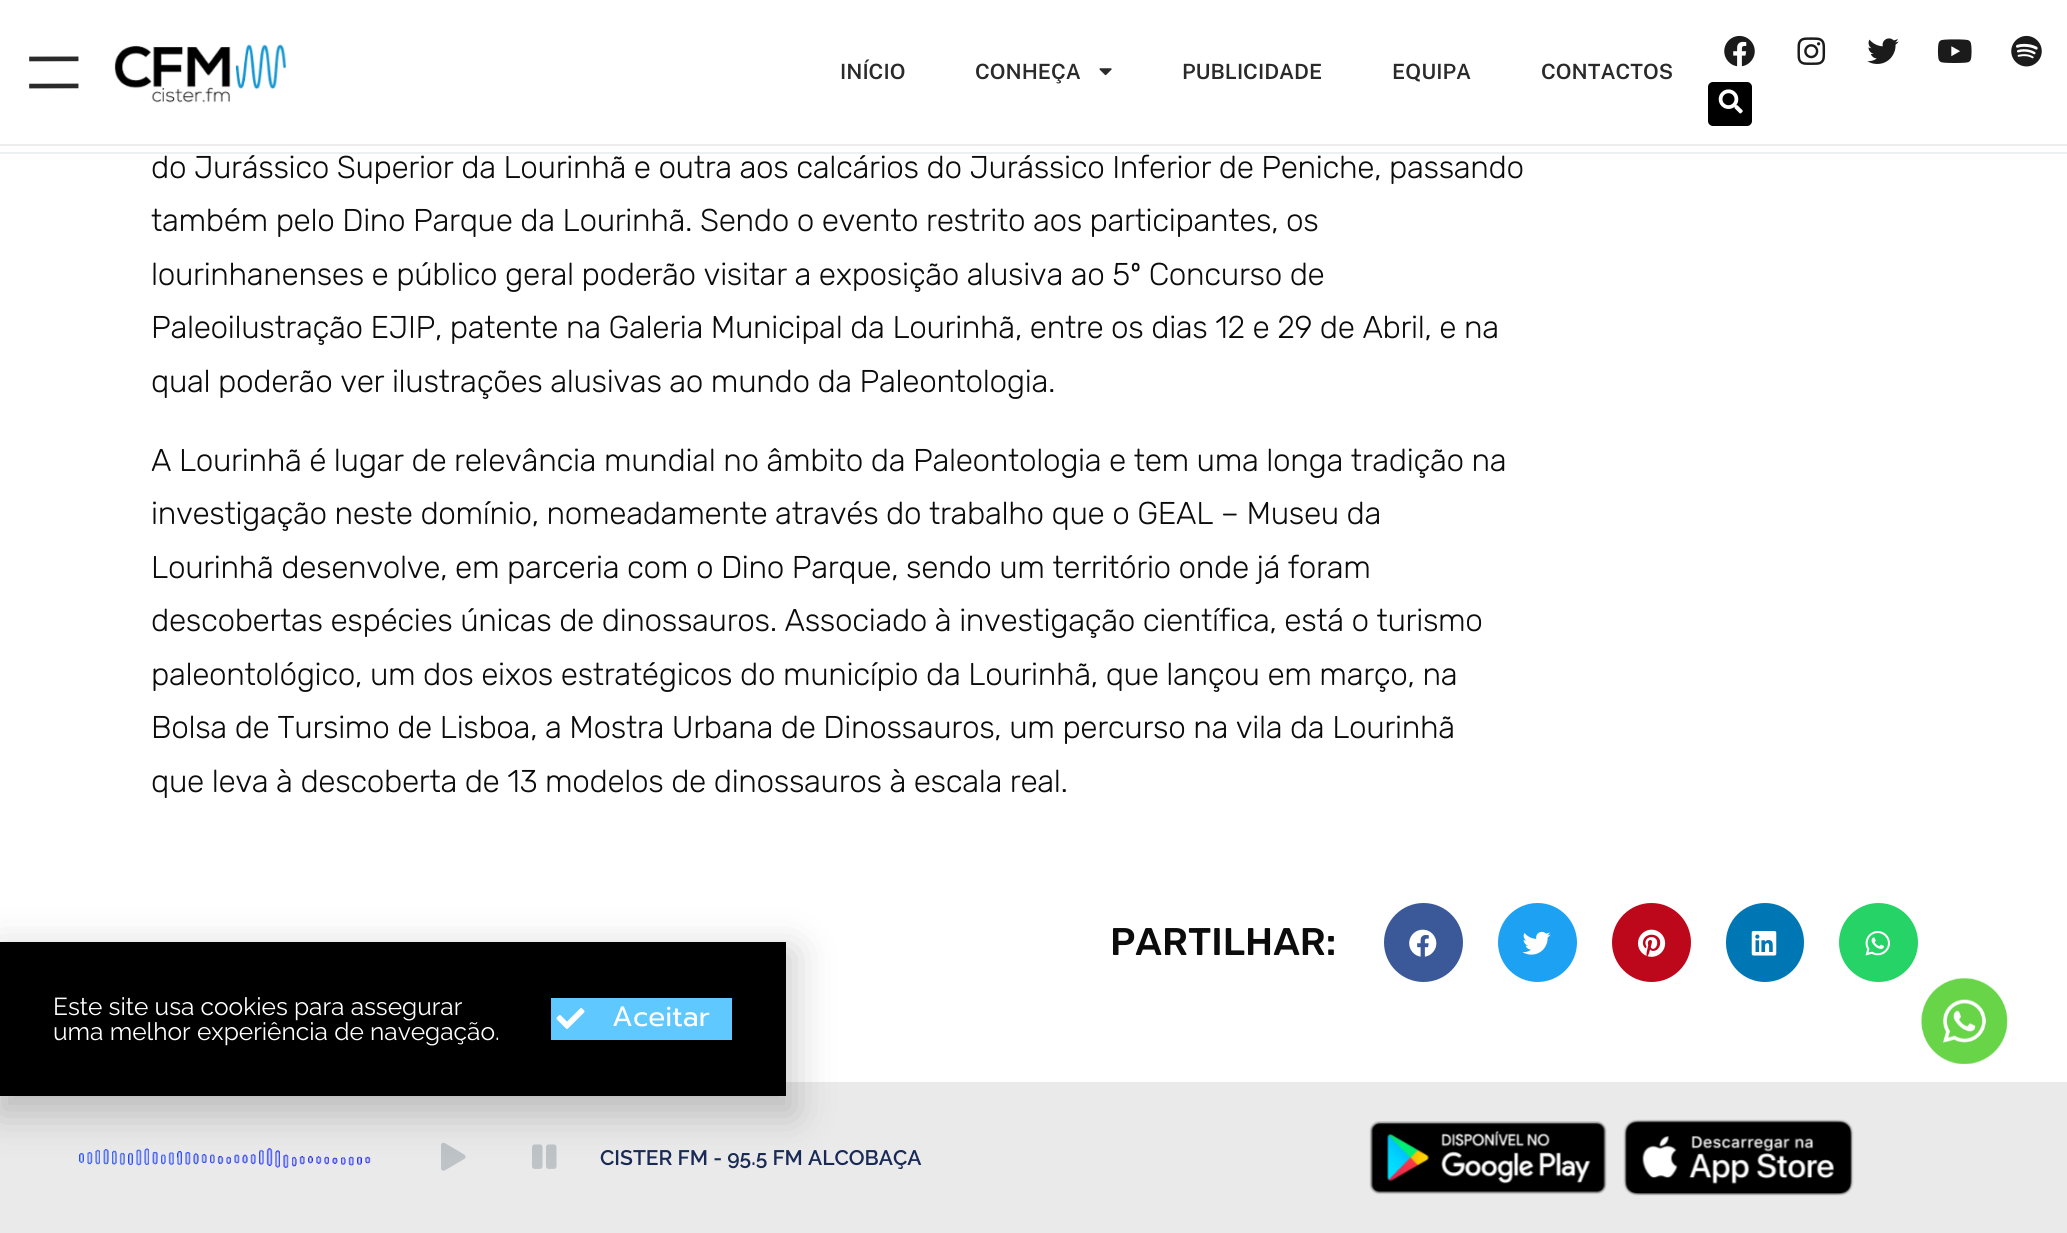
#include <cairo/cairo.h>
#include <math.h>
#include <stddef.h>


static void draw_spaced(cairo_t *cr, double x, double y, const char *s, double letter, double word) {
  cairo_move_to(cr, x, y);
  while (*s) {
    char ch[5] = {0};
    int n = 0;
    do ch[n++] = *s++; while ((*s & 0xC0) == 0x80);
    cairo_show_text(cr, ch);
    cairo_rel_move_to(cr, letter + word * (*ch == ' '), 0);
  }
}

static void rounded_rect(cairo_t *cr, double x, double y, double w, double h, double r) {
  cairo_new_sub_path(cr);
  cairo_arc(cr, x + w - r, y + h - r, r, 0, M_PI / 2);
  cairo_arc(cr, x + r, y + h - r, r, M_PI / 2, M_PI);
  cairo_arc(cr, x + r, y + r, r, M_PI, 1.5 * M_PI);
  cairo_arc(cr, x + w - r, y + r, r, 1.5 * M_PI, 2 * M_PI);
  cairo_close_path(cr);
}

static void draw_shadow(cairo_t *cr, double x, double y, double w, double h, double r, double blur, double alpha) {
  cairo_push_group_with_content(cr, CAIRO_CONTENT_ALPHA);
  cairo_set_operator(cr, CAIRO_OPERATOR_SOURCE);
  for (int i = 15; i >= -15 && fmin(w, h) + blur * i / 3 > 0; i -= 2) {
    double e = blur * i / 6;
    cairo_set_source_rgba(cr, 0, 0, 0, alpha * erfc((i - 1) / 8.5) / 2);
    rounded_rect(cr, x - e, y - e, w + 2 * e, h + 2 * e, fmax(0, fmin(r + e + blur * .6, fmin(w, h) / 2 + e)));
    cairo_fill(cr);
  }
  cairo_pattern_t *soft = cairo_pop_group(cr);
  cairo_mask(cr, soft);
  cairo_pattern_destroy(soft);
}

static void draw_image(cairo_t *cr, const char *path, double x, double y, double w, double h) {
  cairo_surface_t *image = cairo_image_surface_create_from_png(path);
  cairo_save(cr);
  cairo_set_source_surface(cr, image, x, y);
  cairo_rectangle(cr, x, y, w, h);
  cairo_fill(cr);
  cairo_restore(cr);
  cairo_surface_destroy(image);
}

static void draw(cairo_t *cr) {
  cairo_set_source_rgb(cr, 1, 1, 1);
  cairo_paint(cr);
  cairo_set_source_rgb(cr, 237 / 255.0, 237 / 255.0, 237 / 255.0);
  cairo_rectangle(cr, 0, 144, 2067, 2);
  cairo_fill(cr);
  draw_image(cr, "images/1.png", 114, 44, 173, 59);
  draw_image(cr, "images/2.png", 1099, 68, 13, 8);
  draw_image(cr, "images/3.png", 1724, 35, 31, 32);
  draw_image(cr, "images/4.png", 1797, 37, 29, 28);
  draw_image(cr, "images/5.png", 1867, 38, 32, 26);
  draw_image(cr, "images/6.png", 1937, 39, 35, 24);
  draw_image(cr, "images/7.png", 2011, 35, 31, 32);
  cairo_set_source_rgb(cr, 0, 0, 0);
  rounded_rect(cr, 1708, 82, 44, 44, 5);
  cairo_fill(cr);
  draw_image(cr, "images/8.png", 1718, 89, 25, 25);
  cairo_set_source_rgb(cr, 236 / 255.0, 240 / 255.0, 241 / 255.0);
  cairo_rectangle(cr, 0, 152, 2067, 2);
  cairo_fill(cr);
  cairo_set_source_rgb(cr, 59 / 255.0, 89 / 255.0, 152 / 255.0);
  cairo_arc(cr, 1423.5, 942.5, 39.5, 0, 2 * M_PI);
  cairo_fill(cr);
  draw_image(cr, "images/9.png", 1409, 929, 28, 28);
  cairo_set_source_rgb(cr, 29 / 255.0, 161 / 255.0, 242 / 255.0);
  cairo_arc(cr, 1537.5, 942.5, 39.5, 0, 2 * M_PI);
  cairo_fill(cr);
  draw_image(cr, "images/10.png", 1522, 931, 29, 24);
  cairo_set_source_rgb(cr, 189 / 255.0, 8 / 255.0, 28 / 255.0);
  cairo_arc(cr, 1651.5, 942.5, 39.5, 0, 2 * M_PI);
  cairo_fill(cr);
  draw_image(cr, "images/11.png", 1638, 929, 28, 28);
  cairo_set_source_rgb(cr, 0, 119 / 255.0, 181 / 255.0);
  rounded_rect(cr, 1726, 903, 78, 79, 39);
  cairo_fill(cr);
  draw_image(cr, "images/12.png", 1751, 931, 26, 25);
  cairo_set_source_rgb(cr, 37 / 255.0, 211 / 255.0, 102 / 255.0);
  cairo_arc(cr, 1878.5, 942.5, 39.5, 0, 2 * M_PI);
  cairo_fill(cr);
  draw_image(cr, "images/13.png", 1865, 931, 25, 25);
  cairo_set_source_rgb(cr, 234 / 255.0, 234 / 255.0, 234 / 255.0);
  cairo_rectangle(cr, 0, 1082, 2067, 151);
  cairo_fill(cr);
  draw_image(cr, "images/16.png", 79, 1148, 292, 20);
  draw_image(cr, "images/17.png", 441, 1142, 25, 29);
  draw_image(cr, "images/18.png", 532, 1144, 25, 25);
  cairo_set_source_rgb(cr, 0, 0, 0);
  draw_shadow(cr, -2, 950, 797, 165, 0, 20, 0.2);
  cairo_set_source_rgb(cr, 0, 0, 0);
  cairo_rectangle(cr, 0, 942, 786, 154);
  cairo_fill(cr);
  cairo_set_source_rgb(cr, 95 / 255.0, 201 / 255.0, 1);
  cairo_rectangle(cr, 551, 998, 181, 42);
  cairo_fill(cr);
  draw_image(cr, "images/14.png", 556, 1008, 29, 21);
  draw_image(cr, "images/15.png", 1921, 978, 87, 86);
  draw_image(cr, "images/19.png", 1369, 1121, 238, 74);
  draw_image(cr, "images/20.png", 1623, 1119, 231, 77);
  cairo_select_font_face(cr, "Public Sans Thin", CAIRO_FONT_SLANT_NORMAL, CAIRO_FONT_WEIGHT_NORMAL);
  cairo_set_font_size(cr, 126);
  cairo_set_source_rgb(cr, 42 / 255.0, 42 / 255.0, 42 / 255.0);
  cairo_move_to(cr, 21, 117);
  cairo_show_text(cr, "=");
  cairo_select_font_face(cr, "Public Sans SemiBold", CAIRO_FONT_SLANT_NORMAL, CAIRO_FONT_WEIGHT_NORMAL);
  cairo_set_font_size(cr, 21);
  cairo_move_to(cr, 840, 79);
  cairo_show_text(cr, "INÍCIO");
  cairo_move_to(cr, 975, 79);
  cairo_show_text(cr, "CONHEÇA");
  cairo_move_to(cr, 1182, 79);
  cairo_show_text(cr, "PUBLICIDADE");
  cairo_move_to(cr, 1392, 79);
  cairo_show_text(cr, "EQUIPA");
  cairo_move_to(cr, 1541, 79);
  cairo_show_text(cr, "CONTACTOS");
  cairo_select_font_face(cr, "Rubik Light", CAIRO_FONT_SLANT_NORMAL, CAIRO_FONT_WEIGHT_NORMAL);
  cairo_set_font_size(cr, 31.5);
  cairo_set_source_rgb(cr, 12 / 255.0, 12 / 255.0, 12 / 255.0);
  draw_spaced(cr, 151, 178, "do Jurássico Superior da Lourinhã e outra aos calcários do Jurássico Inferior de Peniche, passando", -0.35, 0);
  draw_spaced(cr, 151, 231, "também pelo Dino Parque da Lourinhã. Sendo o evento restrito aos participantes, os", -0.35, 0);
  draw_spaced(cr, 151, 285, "lourinhanenses e público geral poderão visitar a exposição alusiva ao 5º Concurso de", -0.35, 0);
  draw_spaced(cr, 151, 338, "Paleoilustração EJIP, patente na Galeria Municipal da Lourinhã, entre os dias 12 e 29 de Abril, e na", -0.35, 0);
  draw_spaced(cr, 151, 392, "qual poderão ver ilustrações alusivas ao mundo da Paleontologia.", -0.35, 0);
  draw_spaced(cr, 151, 471, "A Lourinhã é lugar de relevância mundial no âmbito da Paleontologia e tem uma longa tradição na", -0.35, 0);
  draw_spaced(cr, 151, 524, "investigação neste domínio, nomeadamente através do trabalho que o GEAL – Museu da", -0.35, 0);
  draw_spaced(cr, 151, 578, "Lourinhã desenvolve, em parceria com o Dino Parque, sendo um território onde já foram", -0.35, 0);
  draw_spaced(cr, 151, 631, "descobertas espécies únicas de dinossauros. Associado à investigação científica, está o turismo", -0.35, 0);
  draw_spaced(cr, 151, 685, "paleontológico, um dos eixos estratégicos do município da Lourinhã, que lançou em março, na", -0.35, 0);
  draw_spaced(cr, 151, 738, "Bolsa de Tursimo de Lisboa, a Mostra Urbana de Dinossauros, um percurso na vila da Lourinhã", -0.35, 0);
  draw_spaced(cr, 151, 792, "que leva à descoberta de 13 modelos de dinossauros à escala real.", -0.35, 0);
  cairo_select_font_face(cr, "Rubik Medium", CAIRO_FONT_SLANT_NORMAL, CAIRO_FONT_WEIGHT_NORMAL);
  cairo_set_font_size(cr, 38.5);
  cairo_move_to(cr, 1110, 955);
  cairo_show_text(cr, "PARTILHAR:");
  cairo_select_font_face(cr, "Raleway", CAIRO_FONT_SLANT_NORMAL, CAIRO_FONT_WEIGHT_NORMAL);
  cairo_set_font_size(cr, 24.5);
  cairo_set_source_rgb(cr, 1, 1, 1);
  cairo_move_to(cr, 53, 1015);
  cairo_show_text(cr, "Este site usa cookies para assegurar");
  cairo_move_to(cr, 53, 1040);
  cairo_show_text(cr, "uma melhor experiência de navegação.");
  cairo_select_font_face(cr, "Prompt", CAIRO_FONT_SLANT_NORMAL, CAIRO_FONT_WEIGHT_NORMAL);
  cairo_set_font_size(cr, 28);
  cairo_move_to(cr, 612, 1026);
  cairo_show_text(cr, "Aceitar");
  cairo_select_font_face(cr, "Raleway SemiBold", CAIRO_FONT_SLANT_NORMAL, CAIRO_FONT_WEIGHT_NORMAL);
  cairo_set_font_size(cr, 21);
  cairo_set_source_rgb(cr, 25 / 255.0, 42 / 255.0, 86 / 255.0);
  cairo_move_to(cr, 600, 1165);
  cairo_show_text(cr, "CISTER FM - 95.5 FM ALCOBAÇA");
}

int main(void) {
  cairo_surface_t *surface = cairo_image_surface_create(CAIRO_FORMAT_RGB24, 2067, 1233);
  cairo_t *cr = cairo_create(surface);
  cairo_font_options_t *options = cairo_font_options_create();
  cairo_font_options_set_hint_metrics(options, CAIRO_HINT_METRICS_OFF);
  cairo_font_options_set_hint_style(options, CAIRO_HINT_STYLE_NONE);
  cairo_set_font_options(cr, options);
  cairo_set_miter_limit(cr, 4);
  draw(cr);
  cairo_surface_write_to_png(surface, "out.png");
  cairo_font_options_destroy(options);
  cairo_destroy(cr);
  cairo_surface_destroy(surface);
  return 0;
}
